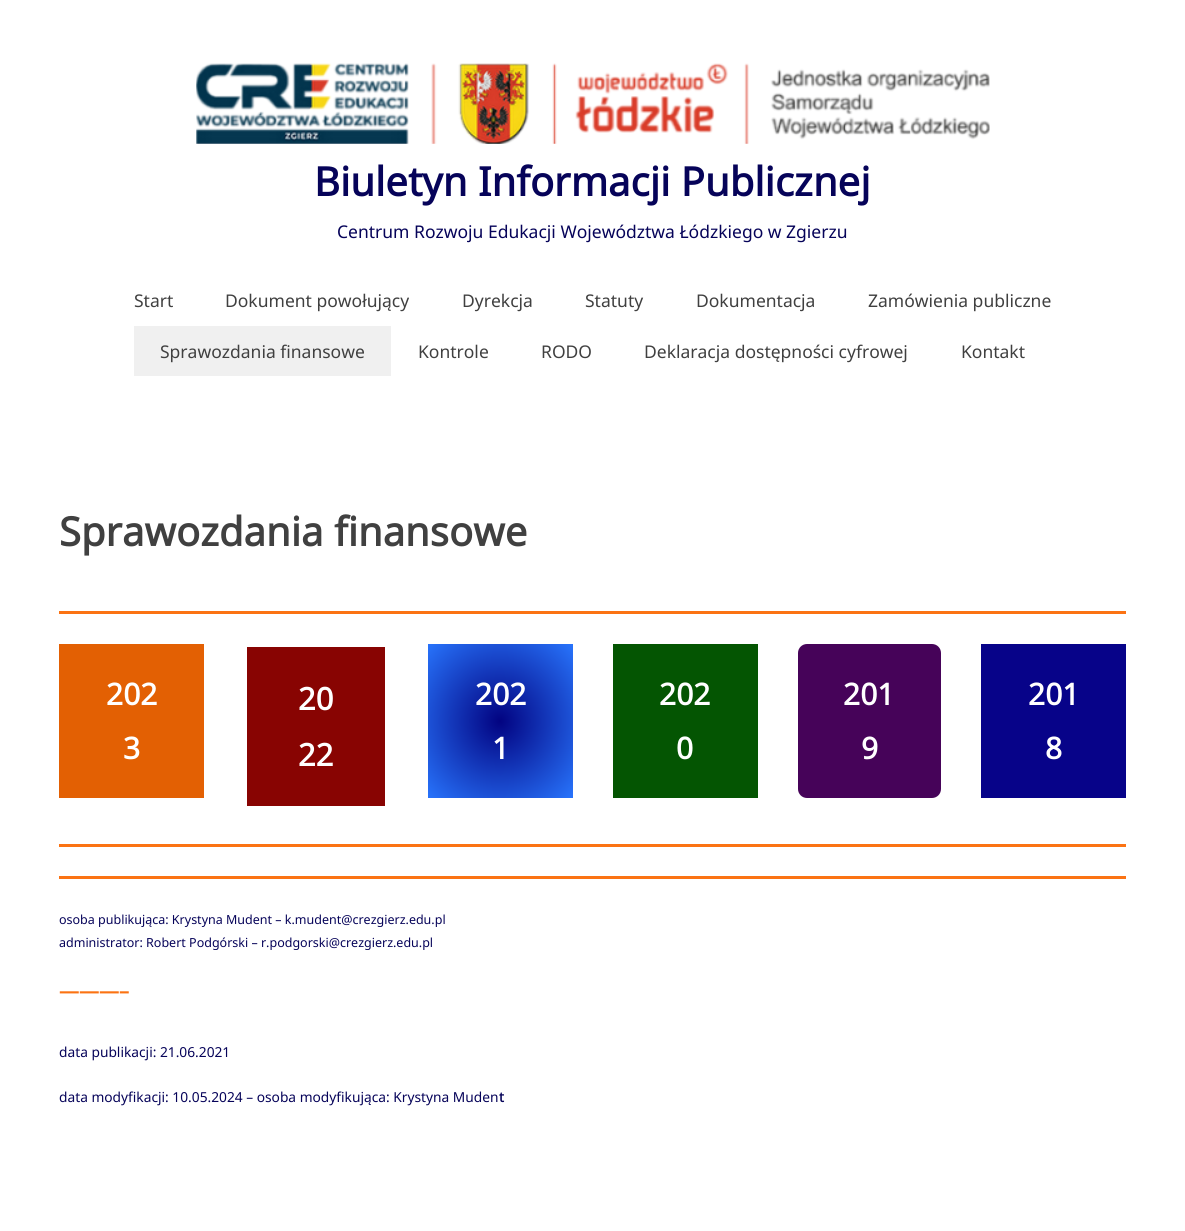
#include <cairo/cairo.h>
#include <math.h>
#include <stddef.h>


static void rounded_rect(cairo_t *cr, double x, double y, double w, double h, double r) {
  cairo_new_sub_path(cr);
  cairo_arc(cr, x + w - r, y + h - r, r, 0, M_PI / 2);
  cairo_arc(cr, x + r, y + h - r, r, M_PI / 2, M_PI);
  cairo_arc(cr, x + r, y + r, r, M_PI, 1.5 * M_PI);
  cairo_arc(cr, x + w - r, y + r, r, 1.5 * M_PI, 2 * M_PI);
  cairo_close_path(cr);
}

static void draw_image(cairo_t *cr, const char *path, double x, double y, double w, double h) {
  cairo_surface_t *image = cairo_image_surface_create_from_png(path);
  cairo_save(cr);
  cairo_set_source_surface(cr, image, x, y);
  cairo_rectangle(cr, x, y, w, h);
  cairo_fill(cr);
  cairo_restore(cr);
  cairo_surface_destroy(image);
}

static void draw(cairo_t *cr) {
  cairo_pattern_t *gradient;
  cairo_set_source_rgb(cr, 1, 1, 1);
  cairo_paint(cr);
  draw_image(cr, "images/1.png", 196, 63, 794, 81);
  cairo_set_source_rgb(cr, 240 / 255.0, 240 / 255.0, 240 / 255.0);
  cairo_rectangle(cr, 134, 326, 257, 50);
  cairo_fill(cr);
  cairo_set_source_rgb(cr, 251 / 255.0, 115 / 255.0, 19 / 255.0);
  cairo_rectangle(cr, 59, 611, 1067, 3);
  cairo_fill(cr);
  cairo_set_source_rgb(cr, 227 / 255.0, 96 / 255.0, 3 / 255.0);
  cairo_rectangle(cr, 59, 644, 145, 154);
  cairo_fill(cr);
  cairo_set_source_rgb(cr, 136 / 255.0, 4 / 255.0, 2 / 255.0);
  cairo_rectangle(cr, 247, 647, 138, 159);
  cairo_fill(cr);
  gradient = cairo_pattern_create_radial(0, 0, 0, 0, 0, 1);
  cairo_pattern_set_matrix(gradient, &(cairo_matrix_t){1.0 / 103, 0, 0, 1.0 / 109, -1.0 * 500 / 103, -1.0 * 721 / 109});
  cairo_pattern_add_color_stop_rgba(gradient, 0, 2 / 255.0, 3 / 255.0, 129 / 255.0, 1);
  cairo_pattern_add_color_stop_rgba(gradient, 1, 40 / 255.0, 116 / 255.0, 252 / 255.0, 1);
  cairo_set_source(cr, gradient);
  cairo_pattern_destroy(gradient);
  cairo_rectangle(cr, 428, 644, 145, 154);
  cairo_fill(cr);
  cairo_set_source_rgb(cr, 4 / 255.0, 85 / 255.0, 2 / 255.0);
  cairo_rectangle(cr, 613, 644, 145, 154);
  cairo_fill(cr);
  cairo_set_source_rgb(cr, 70 / 255.0, 3 / 255.0, 89 / 255.0);
  rounded_rect(cr, 798, 644, 143, 154, 9);
  cairo_fill(cr);
  cairo_set_source_rgb(cr, 7 / 255.0, 3 / 255.0, 137 / 255.0);
  cairo_rectangle(cr, 981, 644, 145, 154);
  cairo_fill(cr);
  cairo_set_source_rgb(cr, 251 / 255.0, 115 / 255.0, 19 / 255.0);
  cairo_rectangle(cr, 59, 844, 1067, 3);
  cairo_fill(cr);
  cairo_rectangle(cr, 59, 876, 1067, 3);
  cairo_fill(cr);
  cairo_select_font_face(cr, "Noto Sans", CAIRO_FONT_SLANT_NORMAL, CAIRO_FONT_WEIGHT_BOLD);
  cairo_set_font_size(cr, 40);
  cairo_set_source_rgb(cr, 6 / 255.0, 3 / 255.0, 89 / 255.0);
  cairo_move_to(cr, 314, 196);
  cairo_show_text(cr, "Biuletyn Informacji Publicznej");
  cairo_select_font_face(cr, "Noto Sans", CAIRO_FONT_SLANT_NORMAL, CAIRO_FONT_WEIGHT_NORMAL);
  cairo_set_font_size(cr, 17.5);
  cairo_move_to(cr, 337, 238);
  cairo_show_text(cr, "Centrum Rozwoju Edukacji Województwa Łódzkiego w Zgierzu");
  cairo_set_source_rgb(cr, 64 / 255.0, 64 / 255.0, 64 / 255.0);
  cairo_move_to(cr, 134, 307);
  cairo_show_text(cr, "Start");
  cairo_move_to(cr, 225, 307);
  cairo_show_text(cr, "Dokument powołujący");
  cairo_move_to(cr, 462, 307);
  cairo_show_text(cr, "Dyrekcja");
  cairo_move_to(cr, 585, 307);
  cairo_show_text(cr, "Statuty");
  cairo_move_to(cr, 696, 307);
  cairo_show_text(cr, "Dokumentacja");
  cairo_move_to(cr, 868, 307);
  cairo_show_text(cr, "Zamówienia publiczne");
  cairo_move_to(cr, 160, 358);
  cairo_show_text(cr, "Sprawozdania finansowe");
  cairo_move_to(cr, 418, 358);
  cairo_show_text(cr, "Kontrole");
  cairo_move_to(cr, 541, 358);
  cairo_show_text(cr, "RODO");
  cairo_move_to(cr, 644, 358);
  cairo_show_text(cr, "Deklaracja dostępności cyfrowej");
  cairo_move_to(cr, 961, 358);
  cairo_show_text(cr, "Kontakt");
  cairo_select_font_face(cr, "Noto Sans", CAIRO_FONT_SLANT_NORMAL, CAIRO_FONT_WEIGHT_BOLD);
  cairo_set_font_size(cr, 40);
  cairo_move_to(cr, 59, 546);
  cairo_show_text(cr, "Sprawozdania finansowe");
  cairo_set_font_size(cr, 30);
  cairo_set_source_rgb(cr, 1, 1, 1);
  cairo_move_to(cr, 106, 705);
  cairo_show_text(cr, "202");
  cairo_move_to(cr, 123, 759);
  cairo_show_text(cr, "3");
  cairo_set_font_size(cr, 31);
  cairo_move_to(cr, 298, 710);
  cairo_show_text(cr, "20");
  cairo_move_to(cr, 298, 766);
  cairo_show_text(cr, "22");
  cairo_set_font_size(cr, 30);
  cairo_move_to(cr, 475, 705);
  cairo_show_text(cr, "202");
  cairo_move_to(cr, 492, 759);
  cairo_show_text(cr, "1");
  cairo_move_to(cr, 659, 705);
  cairo_show_text(cr, "202");
  cairo_move_to(cr, 676, 759);
  cairo_show_text(cr, "0");
  cairo_move_to(cr, 843, 705);
  cairo_show_text(cr, "201");
  cairo_move_to(cr, 861, 759);
  cairo_show_text(cr, "9");
  cairo_move_to(cr, 1028, 705);
  cairo_show_text(cr, "201");
  cairo_move_to(cr, 1045, 759);
  cairo_show_text(cr, "8");
  cairo_select_font_face(cr, "Noto Sans", CAIRO_FONT_SLANT_NORMAL, CAIRO_FONT_WEIGHT_NORMAL);
  cairo_set_font_size(cr, 12.5);
  cairo_set_source_rgb(cr, 6 / 255.0, 3 / 255.0, 89 / 255.0);
  cairo_move_to(cr, 59, 924);
  cairo_show_text(cr, "osoba publikująca: Krystyna Mudent – k.mudent@crezgierz.edu.pl");
  cairo_move_to(cr, 59, 947);
  cairo_show_text(cr, "administrator: Robert Podgórski – r.podgorski@crezgierz.edu.pl");
  cairo_select_font_face(cr, "Noto Sans", CAIRO_FONT_SLANT_NORMAL, CAIRO_FONT_WEIGHT_BOLD);
  cairo_set_font_size(cr, 20);
  cairo_set_source_rgb(cr, 251 / 255.0, 115 / 255.0, 19 / 255.0);
  cairo_move_to(cr, 59, 998);
  cairo_show_text(cr, "———–");
  cairo_select_font_face(cr, "Noto Sans", CAIRO_FONT_SLANT_NORMAL, CAIRO_FONT_WEIGHT_NORMAL);
  cairo_set_font_size(cr, 13.75);
  cairo_set_source_rgb(cr, 6 / 255.0, 3 / 255.0, 89 / 255.0);
  cairo_move_to(cr, 59, 1057);
  cairo_show_text(cr, "data publikacji: 21.06.2021");
  cairo_move_to(cr, 59, 1102);
  cairo_show_text(cr, "data modyfikacji: 10.05.2024 – osoba modyfikująca: Krystyna Muden");
  cairo_select_font_face(cr, "Noto Sans", CAIRO_FONT_SLANT_NORMAL, CAIRO_FONT_WEIGHT_BOLD);
  cairo_move_to(cr, 499, 1102);
  cairo_show_text(cr, "t");
}

int main(void) {
  cairo_surface_t *surface = cairo_image_surface_create(CAIRO_FORMAT_RGB24, 1185, 1231);
  cairo_t *cr = cairo_create(surface);
  cairo_font_options_t *options = cairo_font_options_create();
  cairo_font_options_set_hint_metrics(options, CAIRO_HINT_METRICS_OFF);
  cairo_font_options_set_hint_style(options, CAIRO_HINT_STYLE_NONE);
  cairo_set_font_options(cr, options);
  cairo_set_miter_limit(cr, 4);
  draw(cr);
  cairo_surface_write_to_png(surface, "out.png");
  cairo_font_options_destroy(options);
  cairo_destroy(cr);
  cairo_surface_destroy(surface);
  return 0;
}
